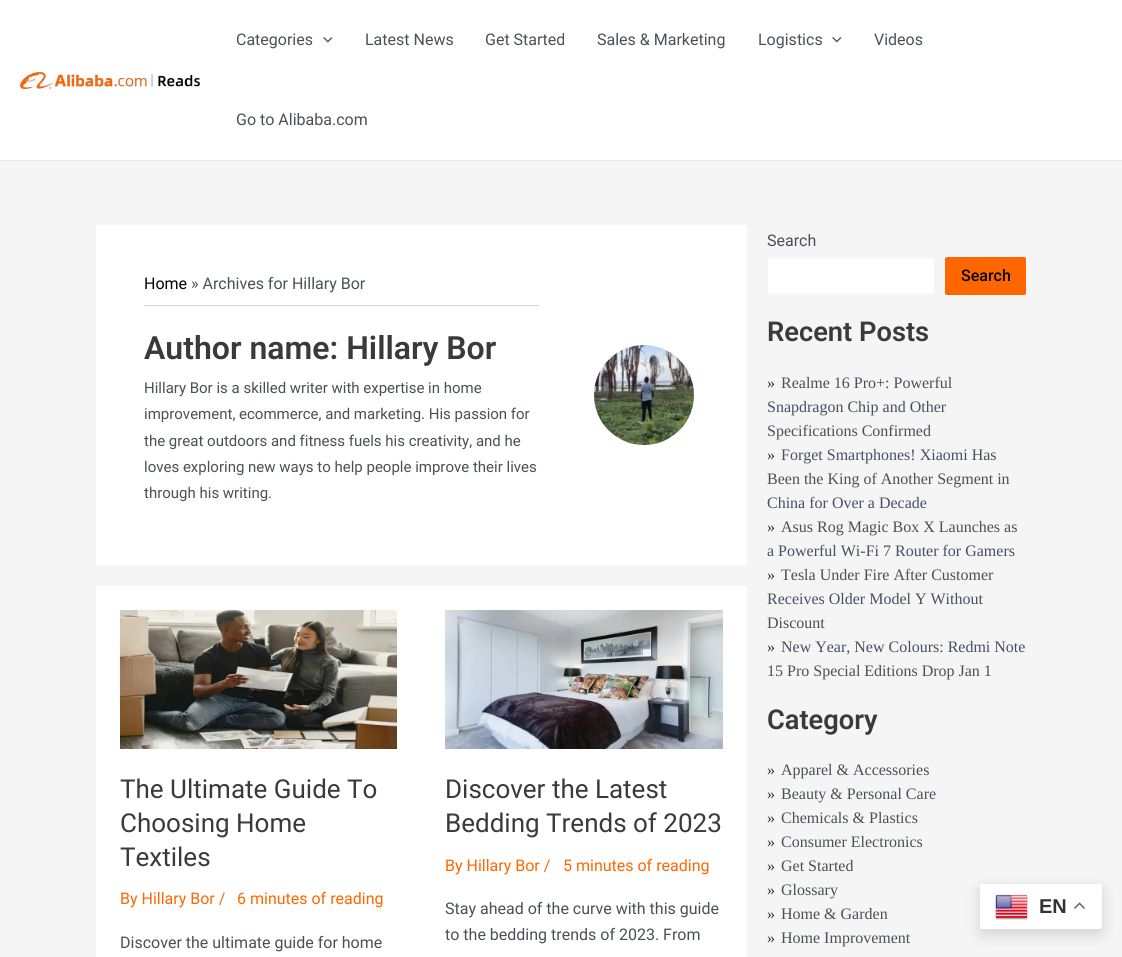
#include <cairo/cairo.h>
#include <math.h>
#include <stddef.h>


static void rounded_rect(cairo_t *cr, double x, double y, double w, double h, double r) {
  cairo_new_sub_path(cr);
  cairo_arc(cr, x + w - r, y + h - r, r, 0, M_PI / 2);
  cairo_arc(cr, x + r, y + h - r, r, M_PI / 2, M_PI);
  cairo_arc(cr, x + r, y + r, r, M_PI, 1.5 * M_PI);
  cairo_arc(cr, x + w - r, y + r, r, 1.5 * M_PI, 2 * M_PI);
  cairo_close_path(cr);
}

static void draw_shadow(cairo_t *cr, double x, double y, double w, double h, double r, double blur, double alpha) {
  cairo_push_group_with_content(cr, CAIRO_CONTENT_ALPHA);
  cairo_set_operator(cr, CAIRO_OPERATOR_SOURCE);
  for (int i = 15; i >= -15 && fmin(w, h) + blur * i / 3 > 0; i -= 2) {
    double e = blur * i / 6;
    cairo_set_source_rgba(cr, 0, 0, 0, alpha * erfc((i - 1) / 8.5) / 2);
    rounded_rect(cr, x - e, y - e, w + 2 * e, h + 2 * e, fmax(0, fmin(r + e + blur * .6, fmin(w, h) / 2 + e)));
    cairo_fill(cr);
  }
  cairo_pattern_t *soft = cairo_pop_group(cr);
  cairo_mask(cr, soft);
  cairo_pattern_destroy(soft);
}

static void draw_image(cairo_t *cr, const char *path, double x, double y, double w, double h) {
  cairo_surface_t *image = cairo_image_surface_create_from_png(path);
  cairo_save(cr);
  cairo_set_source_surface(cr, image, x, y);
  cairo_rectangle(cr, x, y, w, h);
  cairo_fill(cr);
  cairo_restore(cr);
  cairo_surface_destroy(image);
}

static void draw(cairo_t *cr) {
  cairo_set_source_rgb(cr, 245 / 255.0, 245 / 255.0, 245 / 255.0);
  cairo_paint(cr);
  cairo_set_source_rgb(cr, 1, 1, 1);
  cairo_rectangle(cr, 0, 0, 1122, 160);
  cairo_fill(cr);
  cairo_set_source_rgb(cr, 234 / 255.0, 234 / 255.0, 234 / 255.0);
  cairo_rectangle(cr, 0, 160, 1122, 1);
  cairo_fill(cr);
  draw_image(cr, "images/1.png", 20, 72, 180, 17);
  draw_image(cr, "images/2.png", 323, 37, 10, 6);
  draw_image(cr, "images/2.png", 832, 37, 10, 6);
  cairo_set_source_rgb(cr, 1, 1, 1);
  cairo_rectangle(cr, 96, 225, 651, 340);
  cairo_fill(cr);
  cairo_set_source_rgb(cr, 211 / 255.0, 211 / 255.0, 211 / 255.0);
  cairo_rectangle(cr, 144, 305, 395, 1);
  cairo_fill(cr);
  draw_image(cr, "images/3.png", 594, 345, 100, 100);
  cairo_set_source_rgb(cr, 1, 1, 1);
  cairo_rectangle(cr, 96, 586, 651, 371);
  cairo_fill(cr);
  draw_image(cr, "images/4.png", 120, 610, 277, 139);
  draw_image(cr, "images/5.png", 445, 610, 278, 139);
  rounded_rect(cr, 767.5, 257.5, 167, 37, 1.5);
  cairo_fill_preserve(cr);
  cairo_set_source_rgb(cr, 242 / 255.0, 245 / 255.0, 247 / 255.0);
  cairo_set_line_width(cr, 1);
  cairo_stroke(cr);
  cairo_set_source_rgb(cr, 1, 102 / 255.0, 0);
  rounded_rect(cr, 945, 257, 81, 38, 2);
  cairo_fill(cr);
  cairo_set_source_rgb(cr, 0, 0, 0);
  draw_shadow(cr, 980, 889, 122, 45, 2, 7.5, 0.15);
  cairo_set_source_rgb(cr, 1, 1, 1);
  rounded_rect(cr, 980, 884, 122, 45, 2);
  cairo_fill(cr);
  draw_image(cr, "images/6.png", 995, 894, 33, 26);
  draw_image(cr, "images/7.png", 1074, 902, 11, 7);
  cairo_select_font_face(cr, "Roboto", CAIRO_FONT_SLANT_NORMAL, CAIRO_FONT_WEIGHT_NORMAL);
  cairo_set_font_size(cr, 16);
  cairo_set_source_rgb(cr, 75 / 255.0, 79 / 255.0, 88 / 255.0);
  cairo_move_to(cr, 236, 45);
  cairo_show_text(cr, "Categories");
  cairo_move_to(cr, 365, 45);
  cairo_show_text(cr, "Latest News");
  cairo_move_to(cr, 485, 45);
  cairo_show_text(cr, "Get Started");
  cairo_move_to(cr, 597, 45);
  cairo_show_text(cr, "Sales & Marketing");
  cairo_move_to(cr, 758, 45);
  cairo_show_text(cr, "Logistics");
  cairo_move_to(cr, 874, 45);
  cairo_show_text(cr, "Videos");
  cairo_move_to(cr, 236, 125);
  cairo_show_text(cr, "Go to Alibaba.com");
  cairo_set_source_rgb(cr, 0, 0, 0);
  cairo_move_to(cr, 144, 289);
  cairo_show_text(cr, "Home");
  cairo_set_source_rgb(cr, 75 / 255.0, 79 / 255.0, 88 / 255.0);
  cairo_move_to(cr, 191, 289);
  cairo_show_text(cr, "» Archives for Hillary Bor");
  cairo_select_font_face(cr, "Roboto SemiBold", CAIRO_FONT_SLANT_NORMAL, CAIRO_FONT_WEIGHT_NORMAL);
  cairo_set_font_size(cr, 32);
  cairo_set_source_rgb(cr, 58 / 255.0, 58 / 255.0, 58 / 255.0);
  cairo_move_to(cr, 144, 359);
  cairo_show_text(cr, "Author name: Hillary Bor");
  cairo_select_font_face(cr, "Roboto", CAIRO_FONT_SLANT_NORMAL, CAIRO_FONT_WEIGHT_NORMAL);
  cairo_set_font_size(cr, 15);
  cairo_set_source_rgb(cr, 75 / 255.0, 79 / 255.0, 88 / 255.0);
  cairo_move_to(cr, 144, 393);
  cairo_show_text(cr, "Hillary Bor is a skilled writer with expertise in home");
  cairo_move_to(cr, 144, 419);
  cairo_show_text(cr, "improvement, ecommerce, and marketing. His passion for");
  cairo_move_to(cr, 144, 446);
  cairo_show_text(cr, "the great outdoors and fitness fuels his creativity, and he");
  cairo_move_to(cr, 144, 472);
  cairo_show_text(cr, "loves exploring new ways to help people improve their lives");
  cairo_move_to(cr, 144, 498);
  cairo_show_text(cr, "through his writing.");
  cairo_set_font_size(cr, 26);
  cairo_set_source_rgb(cr, 58 / 255.0, 58 / 255.0, 58 / 255.0);
  cairo_move_to(cr, 120, 798);
  cairo_show_text(cr, "The Ultimate Guide To");
  cairo_move_to(cr, 120, 832);
  cairo_show_text(cr, "Choosing Home");
  cairo_move_to(cr, 120, 866);
  cairo_show_text(cr, "Textiles");
  cairo_set_font_size(cr, 16);
  cairo_set_source_rgb(cr, 1, 102 / 255.0, 0);
  cairo_move_to(cr, 120, 904);
  cairo_show_text(cr, "By Hillary Bor /");
  cairo_move_to(cr, 237, 904);
  cairo_show_text(cr, "6 minutes of reading");
  cairo_set_source_rgb(cr, 75 / 255.0, 79 / 255.0, 88 / 255.0);
  cairo_move_to(cr, 120, 948);
  cairo_show_text(cr, "Discover the ultimate guide for home");
  cairo_set_font_size(cr, 26);
  cairo_set_source_rgb(cr, 58 / 255.0, 58 / 255.0, 58 / 255.0);
  cairo_move_to(cr, 445, 798);
  cairo_show_text(cr, "Discover the Latest");
  cairo_move_to(cr, 445, 832);
  cairo_show_text(cr, "Bedding Trends of 2023");
  cairo_set_font_size(cr, 16);
  cairo_set_source_rgb(cr, 1, 102 / 255.0, 0);
  cairo_move_to(cr, 445, 871);
  cairo_show_text(cr, "By Hillary Bor /");
  cairo_move_to(cr, 563, 871);
  cairo_show_text(cr, "5 minutes of reading");
  cairo_set_source_rgb(cr, 75 / 255.0, 79 / 255.0, 88 / 255.0);
  cairo_move_to(cr, 445, 914);
  cairo_show_text(cr, "Stay ahead of the curve with this guide");
  cairo_move_to(cr, 445, 940);
  cairo_show_text(cr, "to the bedding trends of 2023. From");
  cairo_move_to(cr, 767, 246);
  cairo_show_text(cr, "Search");
  cairo_select_font_face(cr, "Roboto Medium", CAIRO_FONT_SLANT_NORMAL, CAIRO_FONT_WEIGHT_NORMAL);
  cairo_set_source_rgb(cr, 0, 0, 0);
  cairo_move_to(cr, 961, 281);
  cairo_show_text(cr, "Search");
  cairo_select_font_face(cr, "Roboto SemiBold", CAIRO_FONT_SLANT_NORMAL, CAIRO_FONT_WEIGHT_NORMAL);
  cairo_set_font_size(cr, 27.25);
  cairo_set_source_rgb(cr, 58 / 255.0, 58 / 255.0, 58 / 255.0);
  cairo_move_to(cr, 767, 341);
  cairo_show_text(cr, "Recent Posts");
  cairo_select_font_face(cr, "Liberation Serif", CAIRO_FONT_SLANT_NORMAL, CAIRO_FONT_WEIGHT_NORMAL);
  cairo_set_font_size(cr, 16);
  cairo_set_source_rgb(cr, 51 / 255.0, 51 / 255.0, 51 / 255.0);
  cairo_move_to(cr, 767, 388);
  cairo_show_text(cr, "»");
  cairo_set_source_rgb(cr, 75 / 255.0, 79 / 255.0, 88 / 255.0);
  cairo_move_to(cr, 781, 388);
  cairo_show_text(cr, "Realme 16 Pro+: Powerful");
  cairo_move_to(cr, 767, 412);
  cairo_show_text(cr, "Snapdragon Chip and Other");
  cairo_move_to(cr, 767, 436);
  cairo_show_text(cr, "Specifications Confirmed");
  cairo_set_source_rgb(cr, 51 / 255.0, 51 / 255.0, 51 / 255.0);
  cairo_move_to(cr, 767, 460);
  cairo_show_text(cr, "»");
  cairo_set_source_rgb(cr, 75 / 255.0, 79 / 255.0, 88 / 255.0);
  cairo_move_to(cr, 781, 460);
  cairo_show_text(cr, "Forget Smartphones! Xiaomi Has");
  cairo_move_to(cr, 767, 484);
  cairo_show_text(cr, "Been the King of Another Segment in");
  cairo_move_to(cr, 767, 508);
  cairo_show_text(cr, "China for Over a Decade");
  cairo_set_source_rgb(cr, 51 / 255.0, 51 / 255.0, 51 / 255.0);
  cairo_move_to(cr, 767, 532);
  cairo_show_text(cr, "»");
  cairo_set_source_rgb(cr, 75 / 255.0, 79 / 255.0, 88 / 255.0);
  cairo_move_to(cr, 781, 532);
  cairo_show_text(cr, "Asus Rog Magic Box X Launches as");
  cairo_move_to(cr, 767, 556);
  cairo_show_text(cr, "a Powerful Wi-Fi 7 Router for Gamers");
  cairo_set_source_rgb(cr, 51 / 255.0, 51 / 255.0, 51 / 255.0);
  cairo_move_to(cr, 767, 580);
  cairo_show_text(cr, "»");
  cairo_set_source_rgb(cr, 75 / 255.0, 79 / 255.0, 88 / 255.0);
  cairo_move_to(cr, 781, 580);
  cairo_show_text(cr, "Tesla Under Fire After Customer");
  cairo_move_to(cr, 767, 604);
  cairo_show_text(cr, "Receives Older Model Y Without");
  cairo_move_to(cr, 767, 628);
  cairo_show_text(cr, "Discount");
  cairo_set_source_rgb(cr, 51 / 255.0, 51 / 255.0, 51 / 255.0);
  cairo_move_to(cr, 767, 652);
  cairo_show_text(cr, "»");
  cairo_set_source_rgb(cr, 75 / 255.0, 79 / 255.0, 88 / 255.0);
  cairo_move_to(cr, 781, 652);
  cairo_show_text(cr, "New Year, New Colours: Redmi Note");
  cairo_move_to(cr, 767, 676);
  cairo_show_text(cr, "15 Pro Special Editions Drop Jan 1");
  cairo_select_font_face(cr, "Roboto SemiBold", CAIRO_FONT_SLANT_NORMAL, CAIRO_FONT_WEIGHT_NORMAL);
  cairo_set_font_size(cr, 27.25);
  cairo_set_source_rgb(cr, 58 / 255.0, 58 / 255.0, 58 / 255.0);
  cairo_move_to(cr, 767, 729);
  cairo_show_text(cr, "Category");
  cairo_select_font_face(cr, "Liberation Serif", CAIRO_FONT_SLANT_NORMAL, CAIRO_FONT_WEIGHT_NORMAL);
  cairo_set_font_size(cr, 16);
  cairo_set_source_rgb(cr, 51 / 255.0, 51 / 255.0, 51 / 255.0);
  cairo_move_to(cr, 767, 775);
  cairo_show_text(cr, "»");
  cairo_set_source_rgb(cr, 75 / 255.0, 79 / 255.0, 88 / 255.0);
  cairo_move_to(cr, 781, 775);
  cairo_show_text(cr, "Apparel & Accessories");
  cairo_set_source_rgb(cr, 51 / 255.0, 51 / 255.0, 51 / 255.0);
  cairo_move_to(cr, 767, 799);
  cairo_show_text(cr, "»");
  cairo_set_source_rgb(cr, 75 / 255.0, 79 / 255.0, 88 / 255.0);
  cairo_move_to(cr, 781, 799);
  cairo_show_text(cr, "Beauty & Personal Care");
  cairo_set_source_rgb(cr, 51 / 255.0, 51 / 255.0, 51 / 255.0);
  cairo_move_to(cr, 767, 823);
  cairo_show_text(cr, "»");
  cairo_set_source_rgb(cr, 75 / 255.0, 79 / 255.0, 88 / 255.0);
  cairo_move_to(cr, 781, 823);
  cairo_show_text(cr, "Chemicals & Plastics");
  cairo_set_source_rgb(cr, 51 / 255.0, 51 / 255.0, 51 / 255.0);
  cairo_move_to(cr, 767, 847);
  cairo_show_text(cr, "»");
  cairo_set_source_rgb(cr, 75 / 255.0, 79 / 255.0, 88 / 255.0);
  cairo_move_to(cr, 781, 847);
  cairo_show_text(cr, "Consumer Electronics");
  cairo_set_source_rgb(cr, 51 / 255.0, 51 / 255.0, 51 / 255.0);
  cairo_move_to(cr, 767, 871);
  cairo_show_text(cr, "»");
  cairo_set_source_rgb(cr, 75 / 255.0, 79 / 255.0, 88 / 255.0);
  cairo_move_to(cr, 781, 871);
  cairo_show_text(cr, "Get Started");
  cairo_set_source_rgb(cr, 51 / 255.0, 51 / 255.0, 51 / 255.0);
  cairo_move_to(cr, 767, 895);
  cairo_show_text(cr, "»");
  cairo_set_source_rgb(cr, 75 / 255.0, 79 / 255.0, 88 / 255.0);
  cairo_move_to(cr, 781, 895);
  cairo_show_text(cr, "Glossary");
  cairo_set_source_rgb(cr, 51 / 255.0, 51 / 255.0, 51 / 255.0);
  cairo_move_to(cr, 767, 919);
  cairo_show_text(cr, "»");
  cairo_set_source_rgb(cr, 75 / 255.0, 79 / 255.0, 88 / 255.0);
  cairo_move_to(cr, 781, 919);
  cairo_show_text(cr, "Home & Garden");
  cairo_set_source_rgb(cr, 51 / 255.0, 51 / 255.0, 51 / 255.0);
  cairo_move_to(cr, 767, 943);
  cairo_show_text(cr, "»");
  cairo_set_source_rgb(cr, 75 / 255.0, 79 / 255.0, 88 / 255.0);
  cairo_move_to(cr, 781, 943);
  cairo_show_text(cr, "Home Improvement");
  cairo_select_font_face(cr, "Liberation Sans", CAIRO_FONT_SLANT_NORMAL, CAIRO_FONT_WEIGHT_BOLD);
  cairo_set_font_size(cr, 20);
  cairo_set_source_rgb(cr, 51 / 255.0, 51 / 255.0, 51 / 255.0);
  cairo_move_to(cr, 1039, 913);
  cairo_show_text(cr, "EN");
}

int main(void) {
  cairo_surface_t *surface = cairo_image_surface_create(CAIRO_FORMAT_RGB24, 1122, 957);
  cairo_t *cr = cairo_create(surface);
  cairo_font_options_t *options = cairo_font_options_create();
  cairo_font_options_set_hint_metrics(options, CAIRO_HINT_METRICS_OFF);
  cairo_font_options_set_hint_style(options, CAIRO_HINT_STYLE_NONE);
  cairo_set_font_options(cr, options);
  cairo_set_miter_limit(cr, 4);
  draw(cr);
  cairo_surface_write_to_png(surface, "out.png");
  cairo_font_options_destroy(options);
  cairo_destroy(cr);
  cairo_surface_destroy(surface);
  return 0;
}
